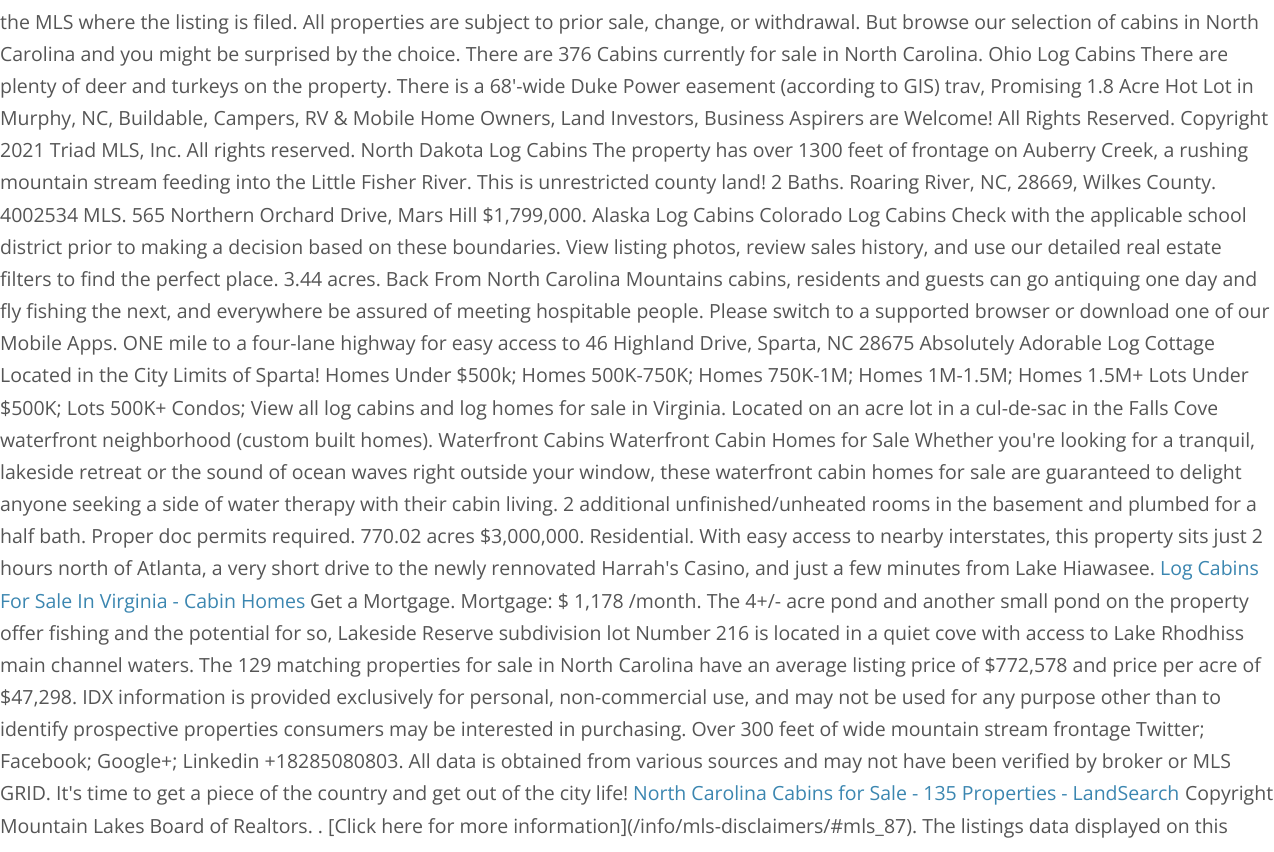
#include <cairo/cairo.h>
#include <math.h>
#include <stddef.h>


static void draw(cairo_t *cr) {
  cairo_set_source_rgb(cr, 1, 1, 1);
  cairo_paint(cr);
  cairo_select_font_face(cr, "Open Sans", CAIRO_FONT_SLANT_NORMAL, CAIRO_FONT_WEIGHT_NORMAL);
  cairo_set_font_size(cr, 19.5);
  cairo_set_source_rgb(cr, 85 / 255.0, 85 / 255.0, 85 / 255.0);
  cairo_move_to(cr, 0, 29);
  cairo_show_text(cr, "the MLS where the listing is filed. All properties are subject to prior sale, change, or withdrawal. But browse our selection of cabins in North");
  cairo_move_to(cr, 0, 61);
  cairo_show_text(cr, "Carolina and you might be surprised by the choice. There are 376 Cabins currently for sale in North Carolina. Ohio Log Cabins There are");
  cairo_move_to(cr, 0, 93);
  cairo_show_text(cr, "plenty of deer and turkeys on the property. There is a 68'-wide Duke Power easement (according to GIS) trav, Promising 1.8 Acre Hot Lot in");
  cairo_move_to(cr, 0, 125);
  cairo_show_text(cr, "Murphy, NC, Buildable, Campers, RV & Mobile Home Owners, Land Investors, Business Aspirers are Welcome! All Rights Reserved. Copyright");
  cairo_move_to(cr, 0, 157);
  cairo_show_text(cr, "2021 Triad MLS, Inc. All rights reserved. North Dakota Log Cabins The property has over 1300 feet of frontage on Auberry Creek, a rushing");
  cairo_move_to(cr, 0, 189);
  cairo_show_text(cr, "mountain stream feeding into the Little Fisher River. This is unrestricted county land! 2 Baths. Roaring River, NC, 28669, Wilkes County.");
  cairo_move_to(cr, 0, 222);
  cairo_show_text(cr, "4002534 MLS. 565 Northern Orchard Drive, Mars Hill $1,799,000. Alaska Log Cabins Colorado Log Cabins Check with the applicable school");
  cairo_move_to(cr, 0, 254);
  cairo_show_text(cr, "district prior to making a decision based on these boundaries. View listing photos, review sales history, and use our detailed real estate");
  cairo_move_to(cr, 0, 286);
  cairo_show_text(cr, "filters to find the perfect place. 3.44 acres. Back From North Carolina Mountains cabins, residents and guests can go antiquing one day and");
  cairo_move_to(cr, 0, 318);
  cairo_show_text(cr, "fly fishing the next, and everywhere be assured of meeting hospitable people. Please switch to a supported browser or download one of our");
  cairo_move_to(cr, 0, 350);
  cairo_show_text(cr, "Mobile Apps. ONE mile to a four-lane highway for easy access to 46 Highland Drive, Sparta, NC 28675 Absolutely Adorable Log Cottage");
  cairo_move_to(cr, 0, 382);
  cairo_show_text(cr, "Located in the City Limits of Sparta! Homes Under $500k; Homes 500K-750K; Homes 750K-1M; Homes 1M-1.5M; Homes 1.5M+ Lots Under");
  cairo_move_to(cr, 0, 415);
  cairo_show_text(cr, "$500K; Lots 500K+ Condos; View all log cabins and log homes for sale in Virginia. Located on an acre lot in a cul-de-sac in the Falls Cove");
  cairo_move_to(cr, 0, 447);
  cairo_show_text(cr, "waterfront neighborhood (custom built homes). Waterfront Cabins Waterfront Cabin Homes for Sale Whether you're looking for a tranquil,");
  cairo_move_to(cr, 0, 479);
  cairo_show_text(cr, "lakeside retreat or the sound of ocean waves right outside your window, these waterfront cabin homes for sale are guaranteed to delight");
  cairo_move_to(cr, 0, 511);
  cairo_show_text(cr, "anyone seeking a side of water therapy with their cabin living. 2 additional unfinished/unheated rooms in the basement and plumbed for a");
  cairo_move_to(cr, 0, 543);
  cairo_show_text(cr, "half bath. Proper doc permits required. 770.02 acres $3,000,000. Residential. With easy access to nearby interstates, this property sits just 2");
  cairo_move_to(cr, 0, 575);
  cairo_show_text(cr, "hours north of Atlanta, a very short drive to the newly rennovated Harrah's Casino, and just a few minutes from Lake Hiawasee.");
  cairo_set_source_rgb(cr, 59 / 255.0, 134 / 255.0, 176 / 255.0);
  cairo_move_to(cr, 1160, 575);
  cairo_show_text(cr, "Log Cabins");
  cairo_move_to(cr, 0, 608);
  cairo_show_text(cr, "For Sale In Virginia - Cabin Homes");
  cairo_set_source_rgb(cr, 85 / 255.0, 85 / 255.0, 85 / 255.0);
  cairo_move_to(cr, 310, 608);
  cairo_show_text(cr, "Get a Mortgage. Mortgage: $ 1,178 /month. The 4+/- acre pond and another small pond on the property");
  cairo_move_to(cr, 0, 640);
  cairo_show_text(cr, "offer fishing and the potential for so, Lakeside Reserve subdivision lot Number 216 is located in a quiet cove with access to Lake Rhodhiss");
  cairo_move_to(cr, 0, 672);
  cairo_show_text(cr, "main channel waters. The 129 matching properties for sale in North Carolina have an average listing price of $772,578 and price per acre of");
  cairo_move_to(cr, 0, 704);
  cairo_show_text(cr, "$47,298. IDX information is provided exclusively for personal, non-commercial use, and may not be used for any purpose other than to");
  cairo_move_to(cr, 0, 736);
  cairo_show_text(cr, "identify prospective properties consumers may be interested in purchasing. Over 300 feet of wide mountain stream frontage Twitter;");
  cairo_move_to(cr, 0, 768);
  cairo_show_text(cr, "Facebook; Google+; Linkedin +18285080803. All data is obtained from various sources and may not have been verified by broker or MLS");
  cairo_move_to(cr, 0, 800);
  cairo_show_text(cr, "GRID. It's time to get a piece of the country and get out of the city life!");
  cairo_set_source_rgb(cr, 59 / 255.0, 134 / 255.0, 176 / 255.0);
  cairo_move_to(cr, 633, 800);
  cairo_show_text(cr, "North Carolina Cabins for Sale - 135 Properties - LandSearch");
  cairo_set_source_rgb(cr, 85 / 255.0, 85 / 255.0, 85 / 255.0);
  cairo_move_to(cr, 1185, 800);
  cairo_show_text(cr, "Copyright");
  cairo_move_to(cr, 0, 833);
  cairo_show_text(cr, "Mountain Lakes Board of Realtors. . [Click here for more information](/info/mls-disclaimers/#mls_87). The listings data displayed on this");
}

int main(void) {
  cairo_surface_t *surface = cairo_image_surface_create(CAIRO_FORMAT_RGB24, 1274, 852);
  cairo_t *cr = cairo_create(surface);
  cairo_font_options_t *options = cairo_font_options_create();
  cairo_font_options_set_hint_metrics(options, CAIRO_HINT_METRICS_OFF);
  cairo_font_options_set_hint_style(options, CAIRO_HINT_STYLE_NONE);
  cairo_set_font_options(cr, options);
  cairo_set_miter_limit(cr, 4);
  draw(cr);
  cairo_surface_write_to_png(surface, "out.png");
  cairo_font_options_destroy(options);
  cairo_destroy(cr);
  cairo_surface_destroy(surface);
  return 0;
}
